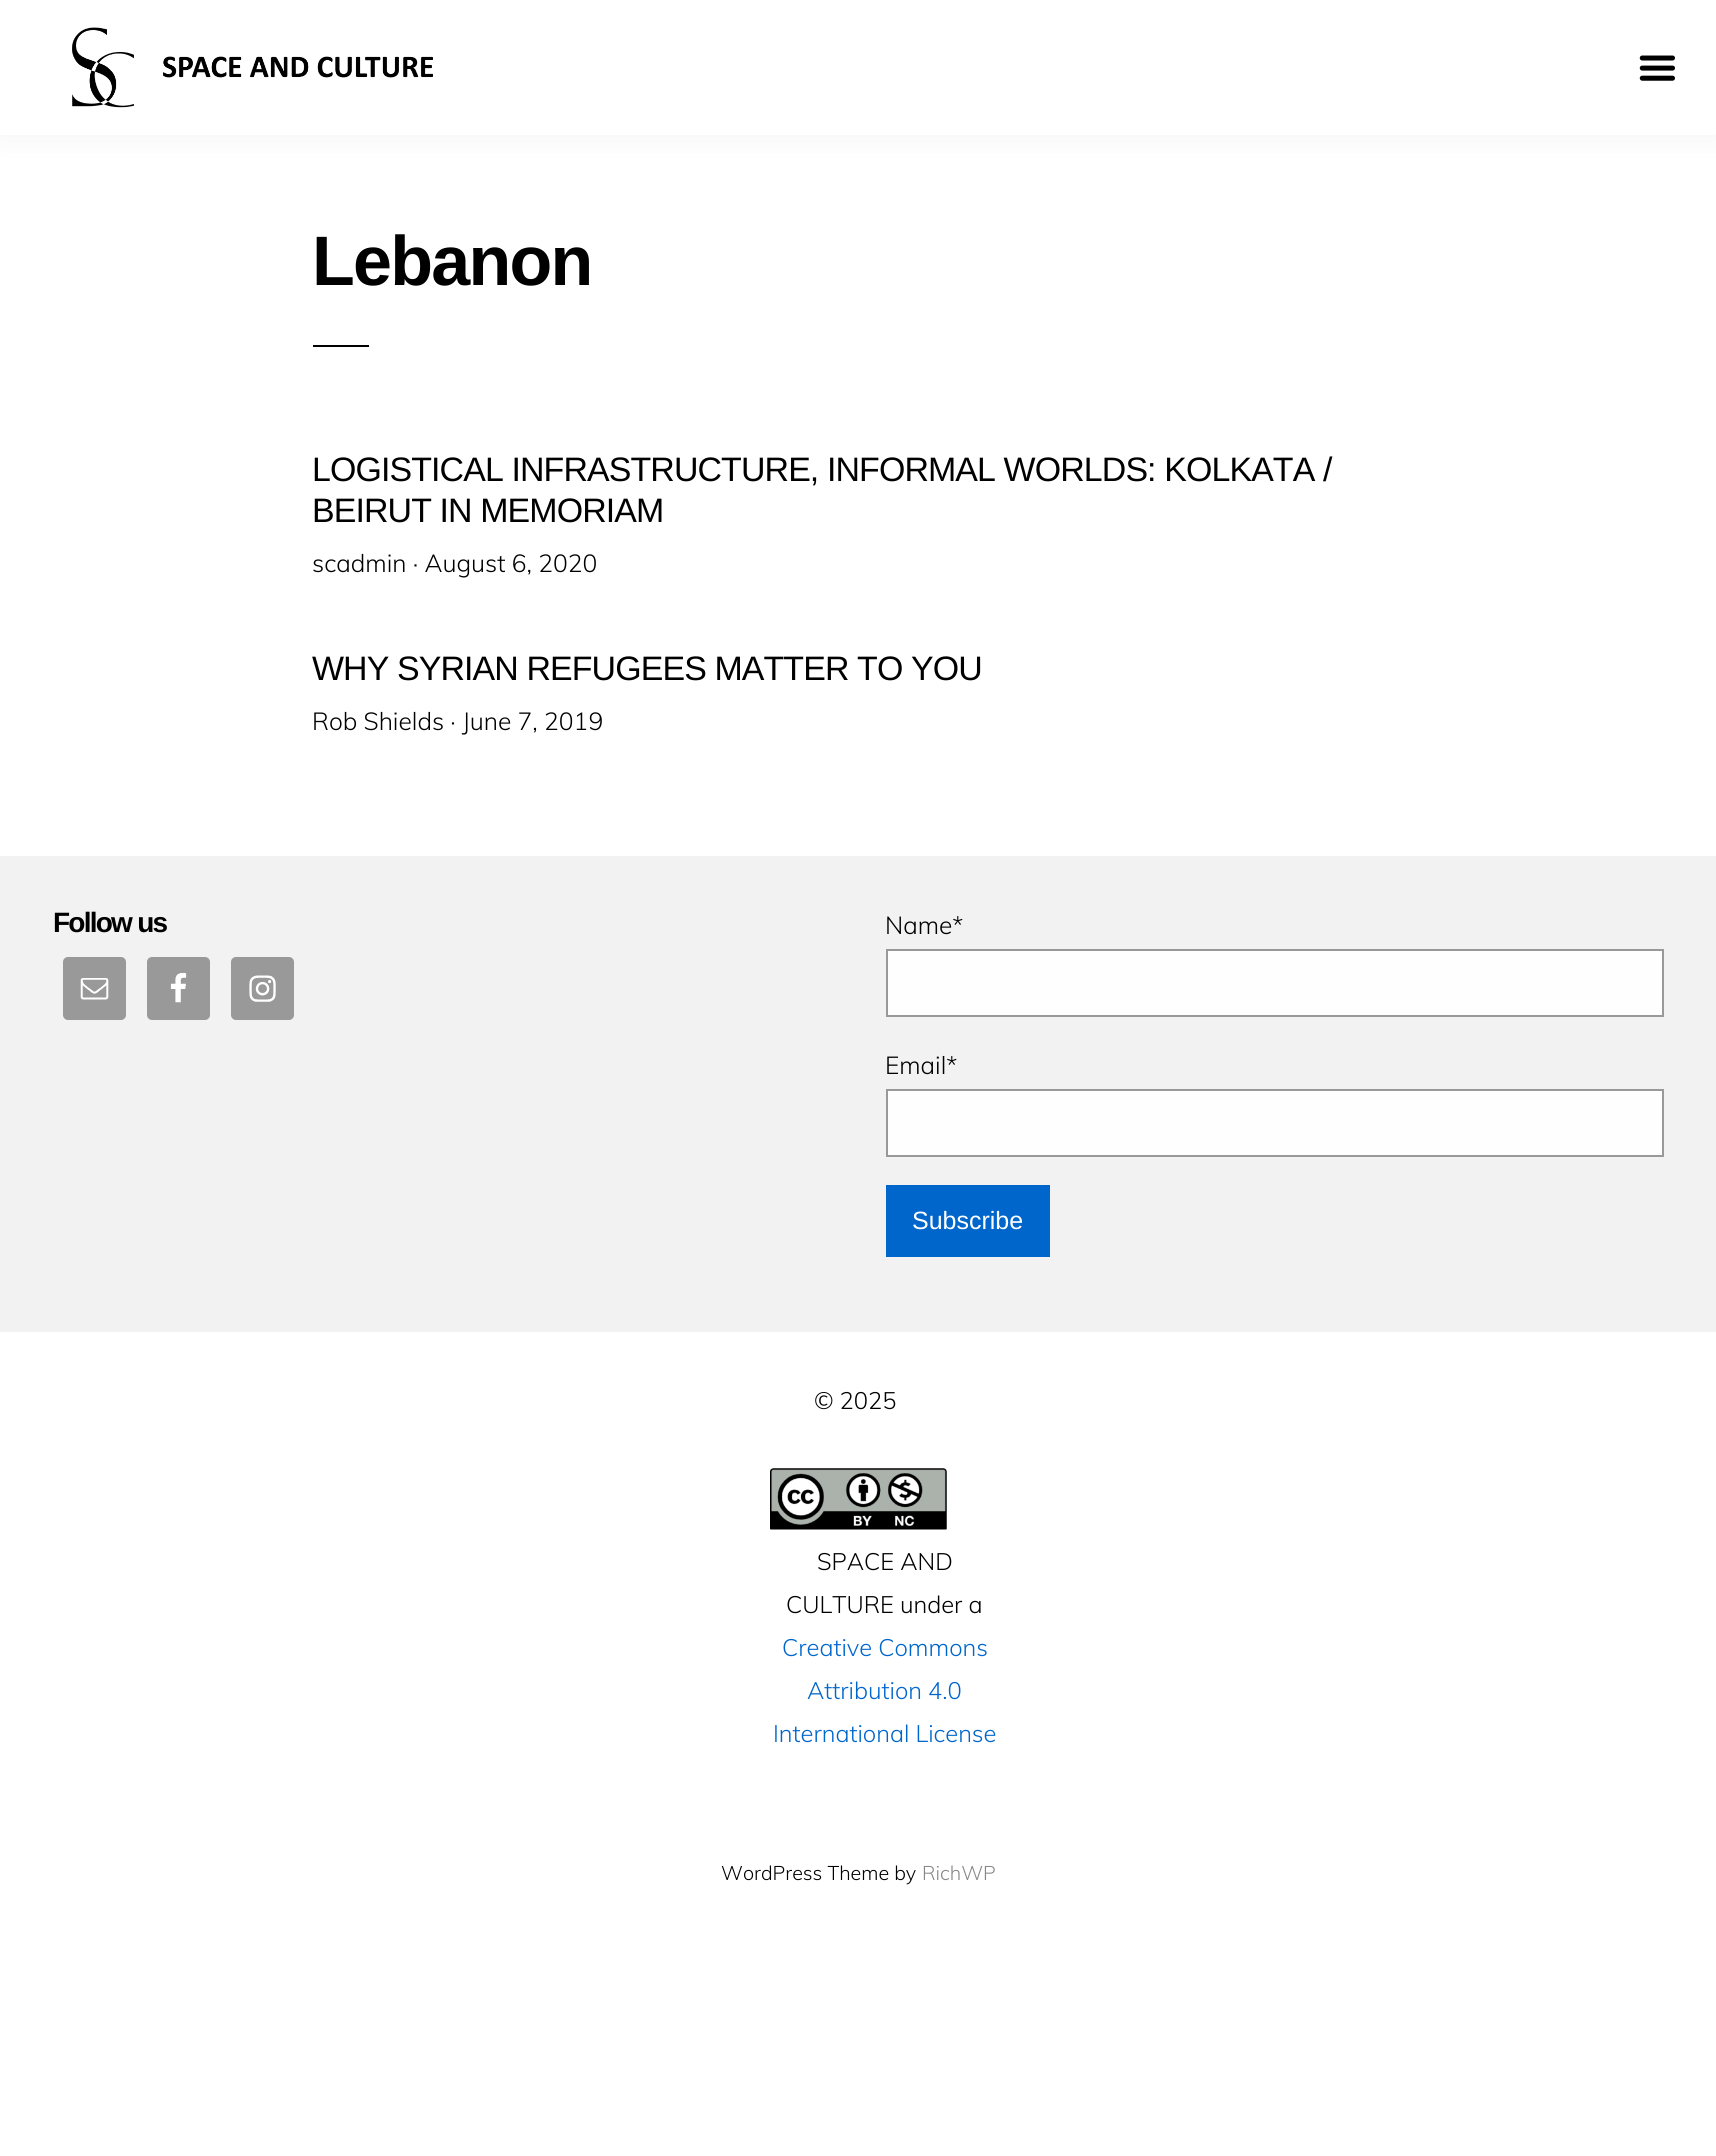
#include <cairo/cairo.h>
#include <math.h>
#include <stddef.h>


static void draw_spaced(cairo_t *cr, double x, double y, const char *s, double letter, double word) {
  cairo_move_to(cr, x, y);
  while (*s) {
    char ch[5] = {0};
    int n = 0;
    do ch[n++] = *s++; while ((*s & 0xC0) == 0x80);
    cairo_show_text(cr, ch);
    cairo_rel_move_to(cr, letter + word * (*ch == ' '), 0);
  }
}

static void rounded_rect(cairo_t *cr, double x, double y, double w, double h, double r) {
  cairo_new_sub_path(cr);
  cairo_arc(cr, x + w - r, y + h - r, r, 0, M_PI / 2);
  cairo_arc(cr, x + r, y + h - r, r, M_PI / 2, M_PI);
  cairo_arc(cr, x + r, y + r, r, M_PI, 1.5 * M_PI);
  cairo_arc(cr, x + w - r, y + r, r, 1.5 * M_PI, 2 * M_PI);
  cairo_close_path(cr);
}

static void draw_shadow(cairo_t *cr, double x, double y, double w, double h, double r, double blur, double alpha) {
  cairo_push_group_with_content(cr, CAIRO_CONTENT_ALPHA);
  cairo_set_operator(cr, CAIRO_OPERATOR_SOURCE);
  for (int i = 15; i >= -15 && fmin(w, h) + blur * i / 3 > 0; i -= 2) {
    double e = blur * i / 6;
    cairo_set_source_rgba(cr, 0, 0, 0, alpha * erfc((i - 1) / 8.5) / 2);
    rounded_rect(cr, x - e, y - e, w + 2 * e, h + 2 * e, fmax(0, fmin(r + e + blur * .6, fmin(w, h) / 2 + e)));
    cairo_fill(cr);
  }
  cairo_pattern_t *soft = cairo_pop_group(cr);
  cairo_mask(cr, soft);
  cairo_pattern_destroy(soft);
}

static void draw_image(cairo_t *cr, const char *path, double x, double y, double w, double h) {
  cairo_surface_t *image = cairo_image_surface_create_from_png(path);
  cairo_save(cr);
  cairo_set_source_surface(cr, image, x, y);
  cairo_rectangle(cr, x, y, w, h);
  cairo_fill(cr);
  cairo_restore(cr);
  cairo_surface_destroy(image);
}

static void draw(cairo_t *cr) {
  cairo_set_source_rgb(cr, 1, 1, 1);
  cairo_paint(cr);
  cairo_set_source_rgb(cr, 0, 0, 0);
  draw_shadow(cr, 0, 0, 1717, 135, 0, 16, 0.05);
  cairo_set_source_rgb(cr, 1, 1, 1);
  cairo_rectangle(cr, 0, 0, 1716, 135);
  cairo_fill(cr);
  draw_image(cr, "images/1.png", 72, 27, 361, 81);
  draw_image(cr, "images/2.png", 1639, 55, 36, 26);
  cairo_set_source_rgb(cr, 0, 0, 0);
  cairo_rectangle(cr, 313, 345, 56, 2);
  cairo_fill(cr);
  cairo_set_source_rgb(cr, 242 / 255.0, 242 / 255.0, 242 / 255.0);
  cairo_rectangle(cr, 0, 856, 1716, 476);
  cairo_fill(cr);
  cairo_set_source_rgb(cr, 153 / 255.0, 153 / 255.0, 153 / 255.0);
  rounded_rect(cr, 63, 957, 63, 63, 5);
  cairo_fill(cr);
  draw_image(cr, "images/3.png", 80, 978, 29, 22);
  rounded_rect(cr, 147, 957, 63, 63, 5);
  cairo_fill(cr);
  draw_image(cr, "images/4.png", 170, 973, 17, 30);
  rounded_rect(cr, 231, 957, 63, 63, 5);
  cairo_fill(cr);
  draw_image(cr, "images/5.png", 249, 975, 27, 27);
  cairo_set_source_rgb(cr, 254 / 255.0, 254 / 255.0, 254 / 255.0);
  cairo_rectangle(cr, 887, 950, 776, 66);
  cairo_fill_preserve(cr);
  cairo_set_source_rgb(cr, 153 / 255.0, 153 / 255.0, 153 / 255.0);
  cairo_stroke(cr);
  cairo_set_source_rgb(cr, 254 / 255.0, 254 / 255.0, 254 / 255.0);
  cairo_rectangle(cr, 887, 1090, 776, 66);
  cairo_fill_preserve(cr);
  cairo_set_source_rgb(cr, 153 / 255.0, 153 / 255.0, 153 / 255.0);
  cairo_stroke(cr);
  cairo_set_source_rgb(cr, 0, 102 / 255.0, 204 / 255.0);
  cairo_rectangle(cr, 886, 1185, 164, 72);
  cairo_fill(cr);
  draw_image(cr, "images/6.png", 770, 1468, 177, 62);
  cairo_select_font_face(cr, "Liberation Sans", CAIRO_FONT_SLANT_NORMAL, CAIRO_FONT_WEIGHT_BOLD);
  cairo_set_font_size(cr, 70);
  cairo_set_source_rgb(cr, 0, 0, 0);
  draw_spaced(cr, 312, 285, "Lebanon", -1.75, 0);
  cairo_select_font_face(cr, "Liberation Sans", CAIRO_FONT_SLANT_NORMAL, CAIRO_FONT_WEIGHT_NORMAL);
  cairo_set_font_size(cr, 33.9);
  draw_spaced(cr, 312, 481, "LOGISTICAL INFRASTRUCTURE, INFORMAL WORLDS: KOLKATA /", -0.88, 0);
  draw_spaced(cr, 312, 522, "BEIRUT IN MEMORIAM", -0.88, 0);
  cairo_select_font_face(cr, "Muli Light", CAIRO_FONT_SLANT_NORMAL, CAIRO_FONT_WEIGHT_NORMAL);
  cairo_set_font_size(cr, 24.6);
  cairo_move_to(cr, 312, 572);
  cairo_show_text(cr, "scadmin · August 6, 2020");
  cairo_select_font_face(cr, "Liberation Sans", CAIRO_FONT_SLANT_NORMAL, CAIRO_FONT_WEIGHT_NORMAL);
  cairo_set_font_size(cr, 33.9);
  draw_spaced(cr, 312, 680, "WHY SYRIAN REFUGEES MATTER TO YOU", -0.88, 0);
  cairo_select_font_face(cr, "Muli Light", CAIRO_FONT_SLANT_NORMAL, CAIRO_FONT_WEIGHT_NORMAL);
  cairo_set_font_size(cr, 24.6);
  cairo_move_to(cr, 312, 730);
  cairo_show_text(cr, "Rob Shields · June 7, 2019");
  cairo_select_font_face(cr, "Liberation Sans", CAIRO_FONT_SLANT_NORMAL, CAIRO_FONT_WEIGHT_BOLD);
  cairo_set_font_size(cr, 28);
  draw_spaced(cr, 53, 932, "Follow us", -1.75, 0);
  cairo_select_font_face(cr, "Muli Light", CAIRO_FONT_SLANT_NORMAL, CAIRO_FONT_WEIGHT_NORMAL);
  cairo_set_font_size(cr, 24.5);
  cairo_move_to(cr, 885, 934);
  cairo_show_text(cr, "Name*");
  cairo_move_to(cr, 885, 1074);
  cairo_show_text(cr, "Email*");
  cairo_select_font_face(cr, "Liberation Sans", CAIRO_FONT_SLANT_NORMAL, CAIRO_FONT_WEIGHT_NORMAL);
  cairo_set_font_size(cr, 25);
  cairo_set_source_rgb(cr, 1, 1, 1);
  cairo_move_to(cr, 912, 1229);
  cairo_show_text(cr, "Subscribe");
  cairo_select_font_face(cr, "Muli Light", CAIRO_FONT_SLANT_NORMAL, CAIRO_FONT_WEIGHT_NORMAL);
  cairo_set_font_size(cr, 23.75);
  cairo_set_source_rgb(cr, 0, 0, 0);
  cairo_move_to(cr, 814, 1409);
  cairo_show_text(cr, "© 2025");
  cairo_move_to(cr, 817, 1570);
  cairo_show_text(cr, "SPACE AND");
  cairo_move_to(cr, 786, 1613);
  cairo_show_text(cr, "CULTURE under a");
  cairo_set_source_rgb(cr, 0, 102 / 255.0, 204 / 255.0);
  cairo_move_to(cr, 782, 1656);
  cairo_show_text(cr, "Creative Commons");
  cairo_move_to(cr, 807, 1699);
  cairo_show_text(cr, "Attribution 4.0");
  cairo_move_to(cr, 773, 1742);
  cairo_show_text(cr, "International License");
  cairo_set_font_size(cr, 19.75);
  cairo_set_source_rgb(cr, 0, 0, 0);
  cairo_move_to(cr, 721, 1880);
  cairo_show_text(cr, "WordPress Theme by");
  cairo_set_source_rgb(cr, 136 / 255.0, 136 / 255.0, 136 / 255.0);
  cairo_move_to(cr, 922, 1880);
  cairo_show_text(cr, "RichWP");
}

int main(void) {
  cairo_surface_t *surface = cairo_image_surface_create(CAIRO_FORMAT_RGB24, 1716, 2156);
  cairo_t *cr = cairo_create(surface);
  cairo_font_options_t *options = cairo_font_options_create();
  cairo_font_options_set_hint_metrics(options, CAIRO_HINT_METRICS_OFF);
  cairo_font_options_set_hint_style(options, CAIRO_HINT_STYLE_NONE);
  cairo_set_font_options(cr, options);
  cairo_set_miter_limit(cr, 4);
  draw(cr);
  cairo_surface_write_to_png(surface, "out.png");
  cairo_font_options_destroy(options);
  cairo_destroy(cr);
  cairo_surface_destroy(surface);
  return 0;
}
